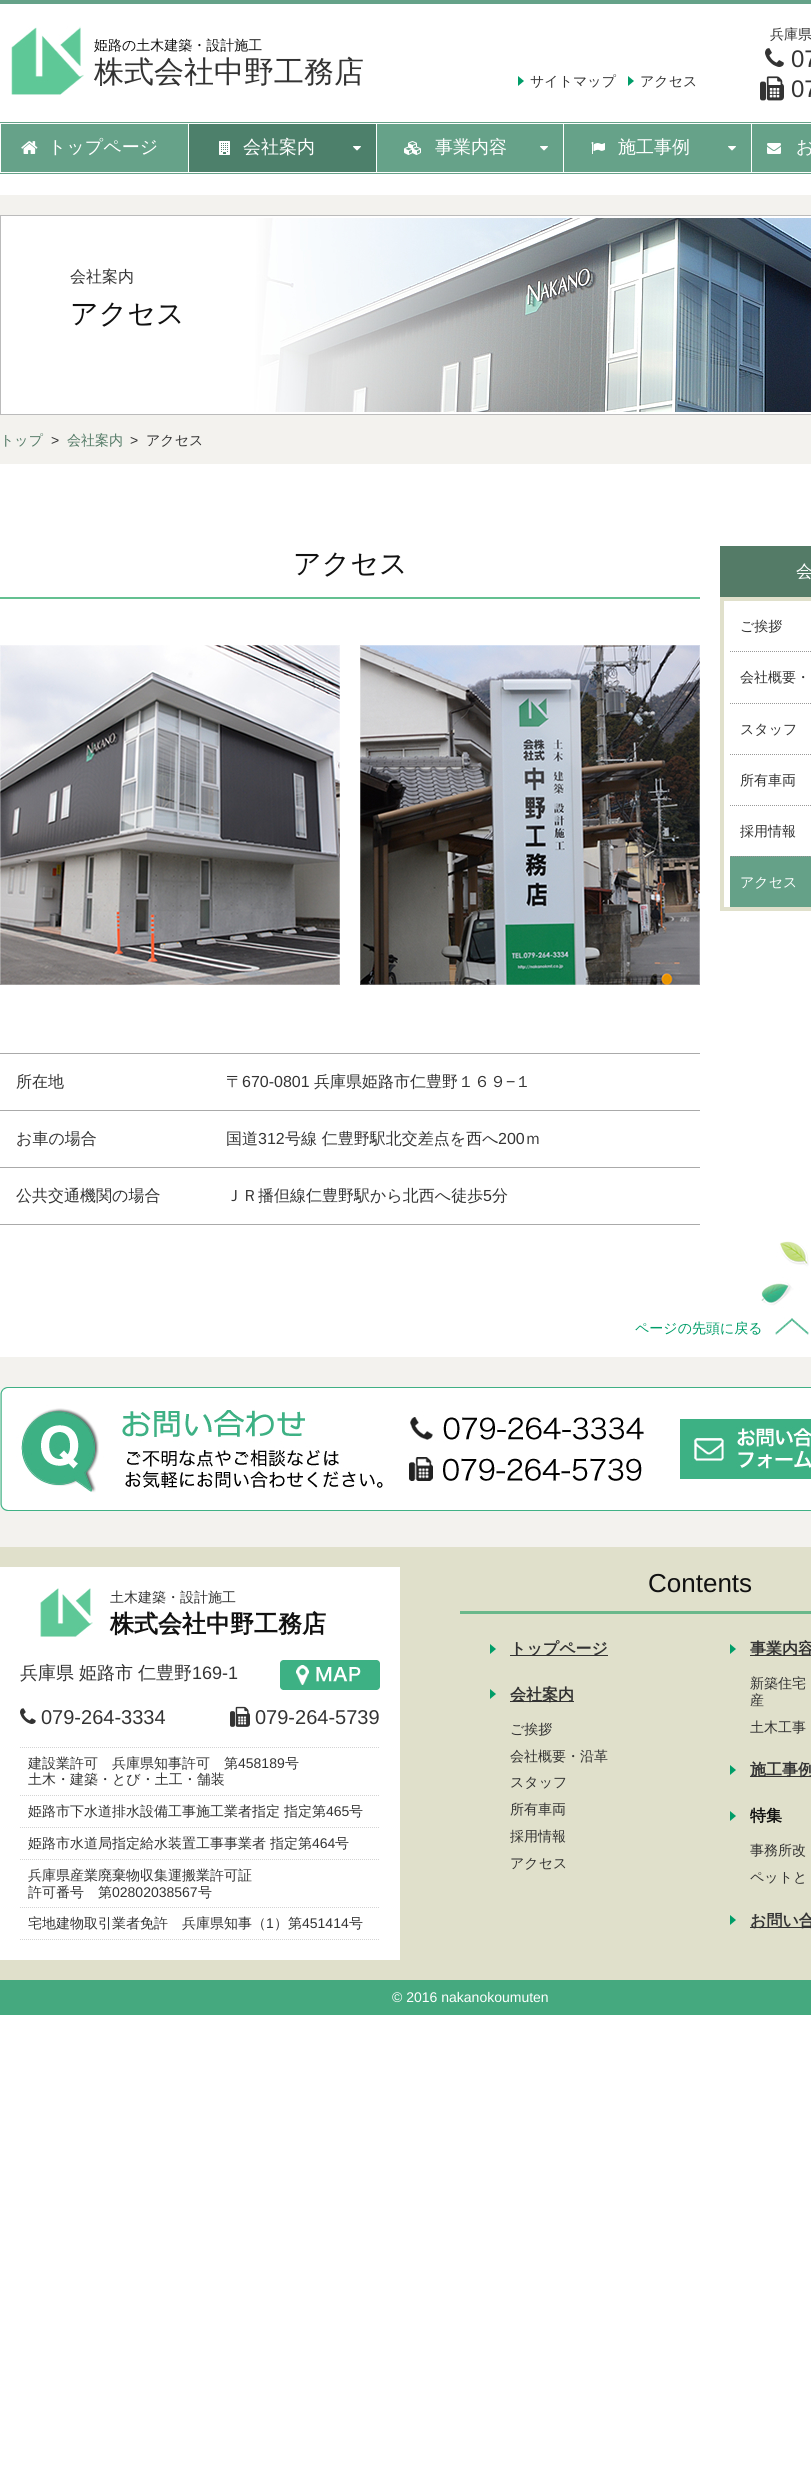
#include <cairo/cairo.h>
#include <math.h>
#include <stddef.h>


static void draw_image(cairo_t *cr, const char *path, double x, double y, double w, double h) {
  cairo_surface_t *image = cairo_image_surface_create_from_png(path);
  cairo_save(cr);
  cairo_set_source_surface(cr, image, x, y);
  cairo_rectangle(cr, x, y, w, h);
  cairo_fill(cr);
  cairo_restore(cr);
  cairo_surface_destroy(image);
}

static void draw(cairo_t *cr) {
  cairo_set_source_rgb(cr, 1, 1, 1);
  cairo_paint(cr);
  cairo_set_source_rgb(cr, 101 / 255.0, 162 / 255.0, 137 / 255.0);
  cairo_rectangle(cr, 0, 0, 811, 4);
  cairo_fill(cr);
  draw_image(cr, "images/1.png", 11, 26, 73, 69);
  draw_image(cr, "images/2.png", 765, 48, 19, 19);
  draw_image(cr, "images/3.png", 760, 76, 24, 25);
  draw_image(cr, "images/4.png", 0, 122, 811, 52);
  cairo_set_source_rgb(cr, 0, 157 / 255.0, 104 / 255.0);
  cairo_new_path(cr);
  cairo_move_to(cr, 518, 86);
  cairo_line_to(cr, 518, 76);
  cairo_line_to(cr, 524, 81);
  cairo_close_path(cr);
  cairo_fill(cr);
  cairo_new_path(cr);
  cairo_move_to(cr, 628, 86);
  cairo_line_to(cr, 628, 76);
  cairo_line_to(cr, 634, 81);
  cairo_close_path(cr);
  cairo_fill(cr);
  cairo_set_source_rgb(cr, 1, 1, 1);
  cairo_rectangle(cr, 0, 124, 1, 49);
  cairo_fill(cr);
  draw_image(cr, "images/5.png", 21, 141, 17, 13);
  cairo_rectangle(cr, 188, 124, 1, 49);
  cairo_fill(cr);
  cairo_set_source_rgb(cr, 77 / 255.0, 128 / 255.0, 107 / 255.0);
  cairo_rectangle(cr, 189, 124, 187, 48);
  cairo_fill(cr);
  draw_image(cr, "images/6.png", 219, 141, 11, 14);
  draw_image(cr, "images/7.png", 353, 146, 8, 5);
  cairo_set_source_rgb(cr, 1, 1, 1);
  cairo_rectangle(cr, 376, 124, 1, 49);
  cairo_fill(cr);
  draw_image(cr, "images/8.png", 404, 141, 17, 14);
  draw_image(cr, "images/9.png", 540, 146, 8, 5);
  cairo_rectangle(cr, 563, 124, 1, 49);
  cairo_fill(cr);
  draw_image(cr, "images/10.png", 591, 142, 14, 12);
  draw_image(cr, "images/9.png", 728, 146, 8, 5);
  cairo_rectangle(cr, 751, 124, 1, 49);
  cairo_fill(cr);
  draw_image(cr, "images/11.png", 767, 143, 14, 11);
  cairo_set_source_rgb(cr, 243 / 255.0, 242 / 255.0, 238 / 255.0);
  cairo_rectangle(cr, 0, 195, 811, 269);
  cairo_fill(cr);
  draw_image(cr, "images/12.png", 0, 215, 811, 200);
  cairo_set_source_rgb(cr, 100 / 255.0, 192 / 255.0, 145 / 255.0);
  cairo_rectangle(cr, 0, 597, 700, 2);
  cairo_fill(cr);
  draw_image(cr, "images/13.png", 0, 645, 340, 340);
  draw_image(cr, "images/14.png", 360, 645, 340, 340);
  cairo_set_source_rgb(cr, 170 / 255.0, 170 / 255.0, 170 / 255.0);
  cairo_rectangle(cr, 0, 1224, 700, 1);
  cairo_fill(cr);
  cairo_rectangle(cr, 0, 1053, 700, 1);
  cairo_fill(cr);
  cairo_rectangle(cr, 0, 1110, 700, 1);
  cairo_fill(cr);
  cairo_rectangle(cr, 0, 1167, 700, 1);
  cairo_fill(cr);
  cairo_set_source_rgb(cr, 84 / 255.0, 123 / 255.0, 103 / 255.0);
  cairo_rectangle(cr, 720, 546, 91, 51);
  cairo_fill(cr);
  cairo_rectangle(cr, 722, 599, 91, 310);
  cairo_set_source_rgb(cr, 224 / 255.0, 224 / 255.0, 203 / 255.0);
  cairo_set_line_width(cr, 4);
  cairo_stroke(cr);
  cairo_new_path(cr);
  cairo_move_to(cr, 730, 651.5);
  cairo_line_to(cr, 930, 651.5);
  cairo_set_source_rgb(cr, 153 / 255.0, 153 / 255.0, 153 / 255.0);
  cairo_set_line_width(cr, 1);
  cairo_set_dash(cr, (double[]){1, 1}, 2, 0);
  cairo_stroke(cr);
  cairo_new_path(cr);
  cairo_move_to(cr, 730, 703.5);
  cairo_line_to(cr, 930, 703.5);
  cairo_stroke(cr);
  cairo_new_path(cr);
  cairo_move_to(cr, 730, 754.5);
  cairo_line_to(cr, 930, 754.5);
  cairo_stroke(cr);
  cairo_new_path(cr);
  cairo_move_to(cr, 730, 805.5);
  cairo_line_to(cr, 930, 805.5);
  cairo_stroke(cr);
  cairo_set_source_rgb(cr, 101 / 255.0, 161 / 255.0, 136 / 255.0);
  cairo_rectangle(cr, 730, 856, 81, 51);
  cairo_fill(cr);
  cairo_new_path(cr);
  cairo_move_to(cr, 730, 856.5);
  cairo_line_to(cr, 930, 856.5);
  cairo_set_source_rgb(cr, 153 / 255.0, 153 / 255.0, 153 / 255.0);
  cairo_stroke(cr);
  draw_image(cr, "images/15.png", 761, 1241, 48, 94);
  cairo_set_source_rgb(cr, 243 / 255.0, 242 / 255.0, 238 / 255.0);
  cairo_rectangle(cr, 0, 1357, 811, 190);
  cairo_fill(cr);
  draw_image(cr, "images/16.png", 0, 1387, 811, 124);
  cairo_set_source_rgb(cr, 224 / 255.0, 224 / 255.0, 203 / 255.0);
  cairo_rectangle(cr, 0, 1547, 811, 433);
  cairo_fill(cr);
  cairo_set_source_rgb(cr, 1, 1, 1);
  cairo_rectangle(cr, 0, 1567, 400, 393);
  cairo_fill(cr);
  draw_image(cr, "images/17.png", 40, 1588, 53, 49);
  draw_image(cr, "images/18.png", 280, 1660, 100, 30);
  draw_image(cr, "images/19.png", 20, 1708, 16, 16);
  draw_image(cr, "images/20.png", 230, 1706, 20, 21);
  cairo_new_path(cr);
  cairo_move_to(cr, 20, 1939.5);
  cairo_line_to(cr, 380, 1939.5);
  cairo_set_source_rgb(cr, 212 / 255.0, 212 / 255.0, 212 / 255.0);
  cairo_stroke(cr);
  cairo_new_path(cr);
  cairo_move_to(cr, 20, 1747.5);
  cairo_line_to(cr, 380, 1747.5);
  cairo_stroke(cr);
  cairo_new_path(cr);
  cairo_move_to(cr, 20, 1795.5);
  cairo_line_to(cr, 380, 1795.5);
  cairo_stroke(cr);
  cairo_new_path(cr);
  cairo_move_to(cr, 20, 1827.5);
  cairo_line_to(cr, 380, 1827.5);
  cairo_stroke(cr);
  cairo_new_path(cr);
  cairo_move_to(cr, 20, 1859.5);
  cairo_line_to(cr, 380, 1859.5);
  cairo_stroke(cr);
  cairo_new_path(cr);
  cairo_move_to(cr, 20, 1907.5);
  cairo_line_to(cr, 380, 1907.5);
  cairo_stroke(cr);
  cairo_set_source_rgb(cr, 106 / 255.0, 184 / 255.0, 139 / 255.0);
  cairo_rectangle(cr, 460, 1611, 351, 3);
  cairo_fill(cr);
  cairo_set_source_rgb(cr, 0, 157 / 255.0, 104 / 255.0);
  cairo_new_path(cr);
  cairo_move_to(cr, 490, 1654);
  cairo_line_to(cr, 490, 1644);
  cairo_line_to(cr, 496, 1649);
  cairo_close_path(cr);
  cairo_move_to(cr, 490, 1699);
  cairo_line_to(cr, 490, 1689);
  cairo_line_to(cr, 496, 1694);
  cairo_close_path(cr);
  cairo_fill(cr);
  cairo_set_source_rgb(cr, 51 / 255.0, 51 / 255.0, 51 / 255.0);
  cairo_rectangle(cr, 510, 1655, 98, 1);
  cairo_fill(cr);
  cairo_rectangle(cr, 510, 1701, 64, 1);
  cairo_fill(cr);
  cairo_set_source_rgb(cr, 0, 157 / 255.0, 104 / 255.0);
  cairo_new_path(cr);
  cairo_move_to(cr, 730, 1654);
  cairo_line_to(cr, 730, 1644);
  cairo_line_to(cr, 736, 1649);
  cairo_close_path(cr);
  cairo_fill(cr);
  cairo_set_source_rgb(cr, 51 / 255.0, 51 / 255.0, 51 / 255.0);
  cairo_rectangle(cr, 750, 1655, 61, 1);
  cairo_fill(cr);
  cairo_set_source_rgb(cr, 0, 157 / 255.0, 104 / 255.0);
  cairo_new_path(cr);
  cairo_move_to(cr, 730, 1775);
  cairo_line_to(cr, 730, 1765);
  cairo_line_to(cr, 736, 1770);
  cairo_close_path(cr);
  cairo_move_to(cr, 730, 1821);
  cairo_line_to(cr, 730, 1811);
  cairo_line_to(cr, 736, 1816);
  cairo_close_path(cr);
  cairo_fill(cr);
  cairo_set_source_rgb(cr, 51 / 255.0, 51 / 255.0, 51 / 255.0);
  cairo_rectangle(cr, 750, 1776, 61, 1);
  cairo_fill(cr);
  cairo_set_source_rgb(cr, 0, 157 / 255.0, 104 / 255.0);
  cairo_new_path(cr);
  cairo_move_to(cr, 730, 1925);
  cairo_line_to(cr, 730, 1915);
  cairo_line_to(cr, 736, 1920);
  cairo_close_path(cr);
  cairo_fill(cr);
  cairo_set_source_rgb(cr, 51 / 255.0, 51 / 255.0, 51 / 255.0);
  cairo_rectangle(cr, 750, 1927, 61, 1);
  cairo_fill(cr);
  cairo_set_source_rgb(cr, 69 / 255.0, 169 / 255.0, 127 / 255.0);
  cairo_rectangle(cr, 0, 1980, 811, 35);
  cairo_fill(cr);
  cairo_select_font_face(cr, "WenQuanYi Zen Hei Medium", CAIRO_FONT_SLANT_NORMAL, CAIRO_FONT_WEIGHT_NORMAL);
  cairo_set_font_size(cr, 14);
  cairo_set_source_rgb(cr, 17 / 255.0, 17 / 255.0, 17 / 255.0);
  cairo_move_to(cr, 94, 50);
  cairo_show_text(cr, "姫路の土木建築・設計施工");
  cairo_set_font_size(cr, 30);
  cairo_set_source_rgb(cr, 51 / 255.0, 51 / 255.0, 51 / 255.0);
  cairo_move_to(cr, 94, 82);
  cairo_show_text(cr, "株式会社中野工務店");
  cairo_set_font_size(cr, 14);
  cairo_move_to(cr, 770, 39);
  cairo_show_text(cr, "兵庫県");
  cairo_select_font_face(cr, "Liberation Sans", CAIRO_FONT_SLANT_NORMAL, CAIRO_FONT_WEIGHT_NORMAL);
  cairo_set_font_size(cr, 24);
  cairo_move_to(cr, 791, 67);
  cairo_show_text(cr, "07");
  cairo_move_to(cr, 791, 97);
  cairo_show_text(cr, "07");
  cairo_select_font_face(cr, "WenQuanYi Zen Hei Medium", CAIRO_FONT_SLANT_NORMAL, CAIRO_FONT_WEIGHT_NORMAL);
  cairo_set_font_size(cr, 14);
  cairo_move_to(cr, 530, 86);
  cairo_show_text(cr, "サイトマップ");
  cairo_move_to(cr, 640, 86);
  cairo_show_text(cr, "アクセス");
  cairo_set_font_size(cr, 18);
  cairo_set_source_rgb(cr, 1, 1, 1);
  cairo_move_to(cr, 48, 153);
  cairo_show_text(cr, "トップページ");
  cairo_move_to(cr, 243, 153);
  cairo_show_text(cr, "会社案内");
  cairo_move_to(cr, 435, 153);
  cairo_show_text(cr, "事業内容");
  cairo_move_to(cr, 618, 153);
  cairo_show_text(cr, "施工事例");
  cairo_move_to(cr, 796, 153);
  cairo_show_text(cr, "お");
  cairo_set_font_size(cr, 16);
  cairo_set_source_rgb(cr, 51 / 255.0, 51 / 255.0, 51 / 255.0);
  cairo_move_to(cr, 70, 282);
  cairo_show_text(cr, "会社案内");
  cairo_set_font_size(cr, 28);
  cairo_set_source_rgb(cr, 17 / 255.0, 17 / 255.0, 17 / 255.0);
  cairo_move_to(cr, 70, 323);
  cairo_show_text(cr, "アクセス");
  cairo_set_font_size(cr, 14);
  cairo_set_source_rgb(cr, 83 / 255.0, 122 / 255.0, 102 / 255.0);
  cairo_move_to(cr, 0, 445);
  cairo_show_text(cr, "トップ");
  cairo_select_font_face(cr, "Liberation Sans", CAIRO_FONT_SLANT_NORMAL, CAIRO_FONT_WEIGHT_NORMAL);
  cairo_set_source_rgb(cr, 51 / 255.0, 51 / 255.0, 51 / 255.0);
  cairo_move_to(cr, 51, 445);
  cairo_show_text(cr, ">");
  cairo_select_font_face(cr, "WenQuanYi Zen Hei Medium", CAIRO_FONT_SLANT_NORMAL, CAIRO_FONT_WEIGHT_NORMAL);
  cairo_set_source_rgb(cr, 83 / 255.0, 122 / 255.0, 102 / 255.0);
  cairo_move_to(cr, 67, 445);
  cairo_show_text(cr, "会社案内");
  cairo_select_font_face(cr, "Liberation Sans", CAIRO_FONT_SLANT_NORMAL, CAIRO_FONT_WEIGHT_NORMAL);
  cairo_set_source_rgb(cr, 51 / 255.0, 51 / 255.0, 51 / 255.0);
  cairo_move_to(cr, 130, 445);
  cairo_show_text(cr, ">");
  cairo_select_font_face(cr, "WenQuanYi Zen Hei Medium", CAIRO_FONT_SLANT_NORMAL, CAIRO_FONT_WEIGHT_NORMAL);
  cairo_move_to(cr, 146, 445);
  cairo_show_text(cr, "アクセス");
  cairo_set_font_size(cr, 28);
  cairo_set_source_rgb(cr, 17 / 255.0, 17 / 255.0, 17 / 255.0);
  cairo_move_to(cr, 293, 573);
  cairo_show_text(cr, "アクセス");
  cairo_set_font_size(cr, 16);
  cairo_set_source_rgb(cr, 51 / 255.0, 51 / 255.0, 51 / 255.0);
  cairo_move_to(cr, 16, 1087);
  cairo_show_text(cr, "所在地");
  cairo_move_to(cr, 226, 1087);
  cairo_show_text(cr, "〒");
  cairo_select_font_face(cr, "Liberation Sans", CAIRO_FONT_SLANT_NORMAL, CAIRO_FONT_WEIGHT_NORMAL);
  cairo_move_to(cr, 242, 1087);
  cairo_show_text(cr, "670-0801");
  cairo_select_font_face(cr, "WenQuanYi Zen Hei Medium", CAIRO_FONT_SLANT_NORMAL, CAIRO_FONT_WEIGHT_NORMAL);
  cairo_move_to(cr, 314, 1087);
  cairo_show_text(cr, "兵庫県姫路市仁豊野１６９");
  cairo_select_font_face(cr, "Liberation Sans", CAIRO_FONT_SLANT_NORMAL, CAIRO_FONT_WEIGHT_NORMAL);
  cairo_move_to(cr, 506, 1087);
  cairo_show_text(cr, "−");
  cairo_select_font_face(cr, "WenQuanYi Zen Hei Medium", CAIRO_FONT_SLANT_NORMAL, CAIRO_FONT_WEIGHT_NORMAL);
  cairo_move_to(cr, 515, 1087);
  cairo_show_text(cr, "１");
  cairo_move_to(cr, 16, 1144);
  cairo_show_text(cr, "お車の場合");
  cairo_move_to(cr, 226, 1144);
  cairo_show_text(cr, "国道");
  cairo_select_font_face(cr, "Liberation Sans", CAIRO_FONT_SLANT_NORMAL, CAIRO_FONT_WEIGHT_NORMAL);
  cairo_move_to(cr, 258, 1144);
  cairo_show_text(cr, "312");
  cairo_select_font_face(cr, "WenQuanYi Zen Hei Medium", CAIRO_FONT_SLANT_NORMAL, CAIRO_FONT_WEIGHT_NORMAL);
  cairo_move_to(cr, 285, 1144);
  cairo_show_text(cr, "号線 仁豊野駅北交差点を西へ");
  cairo_select_font_face(cr, "Liberation Sans", CAIRO_FONT_SLANT_NORMAL, CAIRO_FONT_WEIGHT_NORMAL);
  cairo_move_to(cr, 498, 1144);
  cairo_show_text(cr, "200");
  cairo_select_font_face(cr, "WenQuanYi Zen Hei Medium", CAIRO_FONT_SLANT_NORMAL, CAIRO_FONT_WEIGHT_NORMAL);
  cairo_move_to(cr, 525, 1144);
  cairo_show_text(cr, "ｍ");
  cairo_move_to(cr, 16, 1201);
  cairo_show_text(cr, "公共交通機関の場合");
  cairo_move_to(cr, 226, 1201);
  cairo_show_text(cr, "ＪＲ播但線仁豊野駅から北西へ徒歩");
  cairo_select_font_face(cr, "Liberation Sans", CAIRO_FONT_SLANT_NORMAL, CAIRO_FONT_WEIGHT_NORMAL);
  cairo_move_to(cr, 483, 1201);
  cairo_show_text(cr, "5");
  cairo_select_font_face(cr, "WenQuanYi Zen Hei Medium", CAIRO_FONT_SLANT_NORMAL, CAIRO_FONT_WEIGHT_NORMAL);
  cairo_move_to(cr, 492, 1201);
  cairo_show_text(cr, "分");
  cairo_set_font_size(cr, 17);
  cairo_set_source_rgb(cr, 1, 1, 1);
  cairo_move_to(cr, 796, 577);
  cairo_show_text(cr, "会");
  cairo_set_font_size(cr, 14);
  cairo_set_source_rgb(cr, 51 / 255.0, 51 / 255.0, 51 / 255.0);
  cairo_move_to(cr, 740, 631);
  cairo_show_text(cr, "ご挨拶");
  cairo_move_to(cr, 740, 682);
  cairo_show_text(cr, "会社概要・");
  cairo_move_to(cr, 740, 734);
  cairo_show_text(cr, "スタッフ");
  cairo_move_to(cr, 740, 785);
  cairo_show_text(cr, "所有車両");
  cairo_move_to(cr, 740, 836);
  cairo_show_text(cr, "採用情報");
  cairo_set_source_rgb(cr, 1, 1, 1);
  cairo_move_to(cr, 740, 887);
  cairo_show_text(cr, "アクセス");
  cairo_set_source_rgb(cr, 0, 157 / 255.0, 104 / 255.0);
  cairo_move_to(cr, 635, 1333);
  cairo_show_text(cr, "ページの先頭に戻る");
  cairo_set_source_rgb(cr, 51 / 255.0, 51 / 255.0, 51 / 255.0);
  cairo_move_to(cr, 110, 1602);
  cairo_show_text(cr, "土木建築・設計施工");
  cairo_select_font_face(cr, "WenQuanYi Zen Hei", CAIRO_FONT_SLANT_NORMAL, CAIRO_FONT_WEIGHT_BOLD);
  cairo_set_font_size(cr, 24);
  cairo_set_source_rgb(cr, 17 / 255.0, 17 / 255.0, 17 / 255.0);
  cairo_move_to(cr, 110, 1632);
  cairo_show_text(cr, "株式会社中野工務店");
  cairo_select_font_face(cr, "WenQuanYi Zen Hei Medium", CAIRO_FONT_SLANT_NORMAL, CAIRO_FONT_WEIGHT_NORMAL);
  cairo_set_font_size(cr, 18);
  cairo_set_source_rgb(cr, 51 / 255.0, 51 / 255.0, 51 / 255.0);
  cairo_move_to(cr, 20, 1679);
  cairo_show_text(cr, "兵庫県");
  cairo_move_to(cr, 79, 1679);
  cairo_show_text(cr, "姫路市");
  cairo_move_to(cr, 138, 1679);
  cairo_show_text(cr, "仁豊野");
  cairo_select_font_face(cr, "Liberation Sans", CAIRO_FONT_SLANT_NORMAL, CAIRO_FONT_WEIGHT_NORMAL);
  cairo_move_to(cr, 192, 1679);
  cairo_show_text(cr, "169-1");
  cairo_set_font_size(cr, 20);
  cairo_move_to(cr, 41, 1724);
  cairo_show_text(cr, "079-264-3334");
  cairo_move_to(cr, 255, 1724);
  cairo_show_text(cr, "079-264-5739");
  cairo_select_font_face(cr, "WenQuanYi Zen Hei Medium", CAIRO_FONT_SLANT_NORMAL, CAIRO_FONT_WEIGHT_NORMAL);
  cairo_set_font_size(cr, 14);
  cairo_move_to(cr, 28, 1768);
  cairo_show_text(cr, "建設業許可　兵庫県知事許可　第");
  cairo_select_font_face(cr, "Liberation Sans", CAIRO_FONT_SLANT_NORMAL, CAIRO_FONT_WEIGHT_NORMAL);
  cairo_move_to(cr, 238, 1768);
  cairo_show_text(cr, "458189");
  cairo_select_font_face(cr, "WenQuanYi Zen Hei Medium", CAIRO_FONT_SLANT_NORMAL, CAIRO_FONT_WEIGHT_NORMAL);
  cairo_move_to(cr, 285, 1768);
  cairo_show_text(cr, "号");
  cairo_move_to(cr, 28, 1784);
  cairo_show_text(cr, "土木・建築・とび・土工・舗装");
  cairo_move_to(cr, 28, 1816);
  cairo_show_text(cr, "姫路市下水道排水設備工事施工業者指定");
  cairo_move_to(cr, 284, 1816);
  cairo_show_text(cr, "指定第");
  cairo_select_font_face(cr, "Liberation Sans", CAIRO_FONT_SLANT_NORMAL, CAIRO_FONT_WEIGHT_NORMAL);
  cairo_move_to(cr, 326, 1816);
  cairo_show_text(cr, "465");
  cairo_select_font_face(cr, "WenQuanYi Zen Hei Medium", CAIRO_FONT_SLANT_NORMAL, CAIRO_FONT_WEIGHT_NORMAL);
  cairo_move_to(cr, 349, 1816);
  cairo_show_text(cr, "号");
  cairo_move_to(cr, 28, 1848);
  cairo_show_text(cr, "姫路市水道局指定給水装置工事事業者");
  cairo_move_to(cr, 270, 1848);
  cairo_show_text(cr, "指定第");
  cairo_select_font_face(cr, "Liberation Sans", CAIRO_FONT_SLANT_NORMAL, CAIRO_FONT_WEIGHT_NORMAL);
  cairo_move_to(cr, 312, 1848);
  cairo_show_text(cr, "464");
  cairo_select_font_face(cr, "WenQuanYi Zen Hei Medium", CAIRO_FONT_SLANT_NORMAL, CAIRO_FONT_WEIGHT_NORMAL);
  cairo_move_to(cr, 335, 1848);
  cairo_show_text(cr, "号");
  cairo_move_to(cr, 28, 1880);
  cairo_show_text(cr, "兵庫県産業廃棄物収集運搬業許可証");
  cairo_move_to(cr, 28, 1897);
  cairo_show_text(cr, "許可番号　第");
  cairo_select_font_face(cr, "Liberation Sans", CAIRO_FONT_SLANT_NORMAL, CAIRO_FONT_WEIGHT_NORMAL);
  cairo_move_to(cr, 112, 1897);
  cairo_show_text(cr, "02802038567");
  cairo_select_font_face(cr, "WenQuanYi Zen Hei Medium", CAIRO_FONT_SLANT_NORMAL, CAIRO_FONT_WEIGHT_NORMAL);
  cairo_move_to(cr, 198, 1897);
  cairo_show_text(cr, "号");
  cairo_move_to(cr, 28, 1928);
  cairo_show_text(cr, "宅地建物取引業者免許　兵庫県知事（");
  cairo_select_font_face(cr, "Liberation Sans", CAIRO_FONT_SLANT_NORMAL, CAIRO_FONT_WEIGHT_NORMAL);
  cairo_move_to(cr, 266, 1928);
  cairo_show_text(cr, "1");
  cairo_select_font_face(cr, "WenQuanYi Zen Hei Medium", CAIRO_FONT_SLANT_NORMAL, CAIRO_FONT_WEIGHT_NORMAL);
  cairo_move_to(cr, 274, 1928);
  cairo_show_text(cr, "）第");
  cairo_select_font_face(cr, "Liberation Sans", CAIRO_FONT_SLANT_NORMAL, CAIRO_FONT_WEIGHT_NORMAL);
  cairo_move_to(cr, 302, 1928);
  cairo_show_text(cr, "451414");
  cairo_select_font_face(cr, "WenQuanYi Zen Hei Medium", CAIRO_FONT_SLANT_NORMAL, CAIRO_FONT_WEIGHT_NORMAL);
  cairo_move_to(cr, 349, 1928);
  cairo_show_text(cr, "号");
  cairo_select_font_face(cr, "Liberation Sans", CAIRO_FONT_SLANT_NORMAL, CAIRO_FONT_WEIGHT_NORMAL);
  cairo_set_font_size(cr, 26);
  cairo_set_source_rgb(cr, 17 / 255.0, 17 / 255.0, 17 / 255.0);
  cairo_move_to(cr, 648, 1592);
  cairo_show_text(cr, "Contents");
  cairo_select_font_face(cr, "WenQuanYi Zen Hei", CAIRO_FONT_SLANT_NORMAL, CAIRO_FONT_WEIGHT_BOLD);
  cairo_set_font_size(cr, 16);
  cairo_set_source_rgb(cr, 51 / 255.0, 51 / 255.0, 51 / 255.0);
  cairo_move_to(cr, 510, 1654);
  cairo_show_text(cr, "トップページ");
  cairo_move_to(cr, 510, 1700);
  cairo_show_text(cr, "会社案内");
  cairo_select_font_face(cr, "WenQuanYi Zen Hei Medium", CAIRO_FONT_SLANT_NORMAL, CAIRO_FONT_WEIGHT_NORMAL);
  cairo_set_font_size(cr, 14);
  cairo_move_to(cr, 510, 1734);
  cairo_show_text(cr, "ご挨拶");
  cairo_move_to(cr, 510, 1761);
  cairo_show_text(cr, "会社概要・沿革");
  cairo_move_to(cr, 510, 1787);
  cairo_show_text(cr, "スタッフ");
  cairo_move_to(cr, 510, 1814);
  cairo_show_text(cr, "所有車両");
  cairo_move_to(cr, 510, 1841);
  cairo_show_text(cr, "採用情報");
  cairo_move_to(cr, 510, 1868);
  cairo_show_text(cr, "アクセス");
  cairo_select_font_face(cr, "WenQuanYi Zen Hei", CAIRO_FONT_SLANT_NORMAL, CAIRO_FONT_WEIGHT_BOLD);
  cairo_set_font_size(cr, 16);
  cairo_move_to(cr, 750, 1654);
  cairo_show_text(cr, "事業内容");
  cairo_select_font_face(cr, "WenQuanYi Zen Hei Medium", CAIRO_FONT_SLANT_NORMAL, CAIRO_FONT_WEIGHT_NORMAL);
  cairo_set_font_size(cr, 14);
  cairo_move_to(cr, 750, 1688);
  cairo_show_text(cr, "新築住宅");
  cairo_move_to(cr, 750, 1705);
  cairo_show_text(cr, "産");
  cairo_move_to(cr, 750, 1732);
  cairo_show_text(cr, "土木工事");
  cairo_select_font_face(cr, "WenQuanYi Zen Hei", CAIRO_FONT_SLANT_NORMAL, CAIRO_FONT_WEIGHT_BOLD);
  cairo_set_font_size(cr, 16);
  cairo_move_to(cr, 750, 1775);
  cairo_show_text(cr, "施工事例");
  cairo_set_source_rgb(cr, 17 / 255.0, 17 / 255.0, 17 / 255.0);
  cairo_move_to(cr, 750, 1821);
  cairo_show_text(cr, "特集");
  cairo_select_font_face(cr, "WenQuanYi Zen Hei Medium", CAIRO_FONT_SLANT_NORMAL, CAIRO_FONT_WEIGHT_NORMAL);
  cairo_set_font_size(cr, 14);
  cairo_set_source_rgb(cr, 51 / 255.0, 51 / 255.0, 51 / 255.0);
  cairo_move_to(cr, 750, 1855);
  cairo_show_text(cr, "事務所改");
  cairo_move_to(cr, 750, 1882);
  cairo_show_text(cr, "ペットと");
  cairo_select_font_face(cr, "WenQuanYi Zen Hei", CAIRO_FONT_SLANT_NORMAL, CAIRO_FONT_WEIGHT_BOLD);
  cairo_set_font_size(cr, 16);
  cairo_move_to(cr, 750, 1926);
  cairo_show_text(cr, "お問い合");
  cairo_select_font_face(cr, "Liberation Sans", CAIRO_FONT_SLANT_NORMAL, CAIRO_FONT_WEIGHT_NORMAL);
  cairo_set_font_size(cr, 14);
  cairo_set_source_rgb(cr, 1, 1, 1);
  cairo_move_to(cr, 392, 2002);
  cairo_show_text(cr, "© 2016 nakanokoumuten");
}

int main(void) {
  cairo_surface_t *surface = cairo_image_surface_create(CAIRO_FORMAT_RGB24, 811, 2490);
  cairo_t *cr = cairo_create(surface);
  cairo_font_options_t *options = cairo_font_options_create();
  cairo_font_options_set_hint_metrics(options, CAIRO_HINT_METRICS_OFF);
  cairo_font_options_set_hint_style(options, CAIRO_HINT_STYLE_NONE);
  cairo_set_font_options(cr, options);
  cairo_set_miter_limit(cr, 4);
  draw(cr);
  cairo_surface_write_to_png(surface, "out.png");
  cairo_font_options_destroy(options);
  cairo_destroy(cr);
  cairo_surface_destroy(surface);
  return 0;
}
